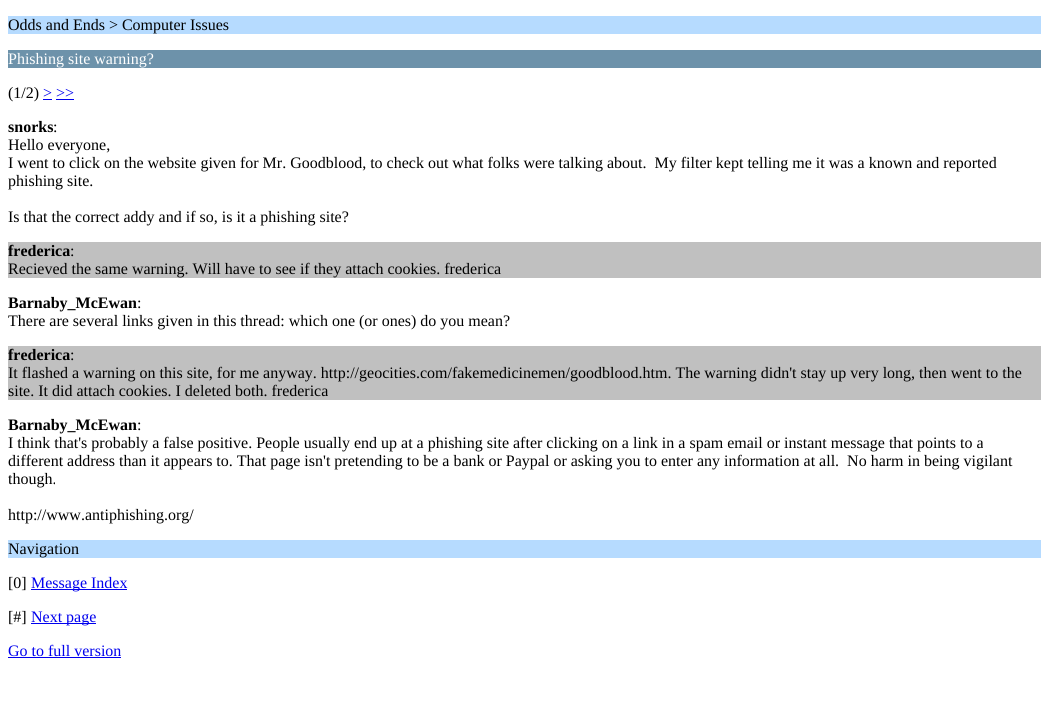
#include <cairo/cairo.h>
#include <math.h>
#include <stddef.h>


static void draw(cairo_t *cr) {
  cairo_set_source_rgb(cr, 1, 1, 1);
  cairo_paint(cr);
  cairo_set_source_rgb(cr, 182 / 255.0, 219 / 255.0, 1);
  cairo_rectangle(cr, 8, 16, 1033, 18);
  cairo_fill(cr);
  cairo_set_source_rgb(cr, 109 / 255.0, 146 / 255.0, 170 / 255.0);
  cairo_rectangle(cr, 8, 50, 1033, 18);
  cairo_fill(cr);
  cairo_set_source_rgb(cr, 0, 0, 238 / 255.0);
  cairo_rectangle(cr, 43, 99, 9, 1);
  cairo_fill(cr);
  cairo_rectangle(cr, 56, 99, 18, 1);
  cairo_fill(cr);
  cairo_set_source_rgb(cr, 192 / 255.0, 192 / 255.0, 192 / 255.0);
  cairo_rectangle(cr, 8, 242, 1033, 36);
  cairo_fill(cr);
  cairo_rectangle(cr, 8, 346, 1033, 54);
  cairo_fill(cr);
  cairo_set_source_rgb(cr, 182 / 255.0, 219 / 255.0, 1);
  cairo_rectangle(cr, 8, 540, 1033, 18);
  cairo_fill(cr);
  cairo_set_source_rgb(cr, 0, 0, 238 / 255.0);
  cairo_rectangle(cr, 31, 589, 96, 1);
  cairo_fill(cr);
  cairo_rectangle(cr, 31, 623, 65, 1);
  cairo_fill(cr);
  cairo_rectangle(cr, 8, 657, 113, 1);
  cairo_fill(cr);
  cairo_select_font_face(cr, "Liberation Serif", CAIRO_FONT_SLANT_NORMAL, CAIRO_FONT_WEIGHT_NORMAL);
  cairo_set_font_size(cr, 16);
  cairo_set_source_rgb(cr, 0, 0, 0);
  cairo_move_to(cr, 8, 30);
  cairo_show_text(cr, "Odds and Ends > Computer Issues");
  cairo_set_source_rgb(cr, 1, 1, 1);
  cairo_move_to(cr, 8, 64);
  cairo_show_text(cr, "Phishing site warning?");
  cairo_set_source_rgb(cr, 0, 0, 0);
  cairo_move_to(cr, 8, 98);
  cairo_show_text(cr, "(1/2)");
  cairo_set_source_rgb(cr, 0, 0, 238 / 255.0);
  cairo_move_to(cr, 43, 98);
  cairo_show_text(cr, "> >>");
  cairo_select_font_face(cr, "Liberation Serif", CAIRO_FONT_SLANT_NORMAL, CAIRO_FONT_WEIGHT_BOLD);
  cairo_set_source_rgb(cr, 0, 0, 0);
  cairo_move_to(cr, 8, 132);
  cairo_show_text(cr, "snorks");
  cairo_select_font_face(cr, "Liberation Serif", CAIRO_FONT_SLANT_NORMAL, CAIRO_FONT_WEIGHT_NORMAL);
  cairo_move_to(cr, 53, 132);
  cairo_show_text(cr, ":");
  cairo_move_to(cr, 8, 150);
  cairo_show_text(cr, "Hello everyone,");
  cairo_move_to(cr, 8, 168);
  cairo_show_text(cr, "I went to click on the website given for Mr. Goodblood, to check out what folks were talking about.  My filter kept telling me it was a known and reported");
  cairo_move_to(cr, 8, 186);
  cairo_show_text(cr, "phishing site.");
  cairo_move_to(cr, 8, 222);
  cairo_show_text(cr, "Is that the correct addy and if so, is it a phishing site?");
  cairo_select_font_face(cr, "Liberation Serif", CAIRO_FONT_SLANT_NORMAL, CAIRO_FONT_WEIGHT_BOLD);
  cairo_move_to(cr, 8, 256);
  cairo_show_text(cr, "frederica");
  cairo_select_font_face(cr, "Liberation Serif", CAIRO_FONT_SLANT_NORMAL, CAIRO_FONT_WEIGHT_NORMAL);
  cairo_move_to(cr, 70, 256);
  cairo_show_text(cr, ":");
  cairo_move_to(cr, 8, 274);
  cairo_show_text(cr, "Recieved the same warning. Will have to see if they attach cookies. frederica");
  cairo_select_font_face(cr, "Liberation Serif", CAIRO_FONT_SLANT_NORMAL, CAIRO_FONT_WEIGHT_BOLD);
  cairo_move_to(cr, 8, 308);
  cairo_show_text(cr, "Barnaby_McEwan");
  cairo_select_font_face(cr, "Liberation Serif", CAIRO_FONT_SLANT_NORMAL, CAIRO_FONT_WEIGHT_NORMAL);
  cairo_move_to(cr, 137, 308);
  cairo_show_text(cr, ":");
  cairo_move_to(cr, 8, 326);
  cairo_show_text(cr, "There are several links given in this thread: which one (or ones) do you mean?");
  cairo_select_font_face(cr, "Liberation Serif", CAIRO_FONT_SLANT_NORMAL, CAIRO_FONT_WEIGHT_BOLD);
  cairo_move_to(cr, 8, 360);
  cairo_show_text(cr, "frederica");
  cairo_select_font_face(cr, "Liberation Serif", CAIRO_FONT_SLANT_NORMAL, CAIRO_FONT_WEIGHT_NORMAL);
  cairo_move_to(cr, 70, 360);
  cairo_show_text(cr, ":");
  cairo_move_to(cr, 8, 378);
  cairo_show_text(cr, "It flashed a warning on this site, for me anyway. http://geocities.com/fakemedicinemen/goodblood.htm. The warning didn't stay up very long, then went to the");
  cairo_move_to(cr, 8, 396);
  cairo_show_text(cr, "site. It did attach cookies. I deleted both. frederica");
  cairo_select_font_face(cr, "Liberation Serif", CAIRO_FONT_SLANT_NORMAL, CAIRO_FONT_WEIGHT_BOLD);
  cairo_move_to(cr, 8, 430);
  cairo_show_text(cr, "Barnaby_McEwan");
  cairo_select_font_face(cr, "Liberation Serif", CAIRO_FONT_SLANT_NORMAL, CAIRO_FONT_WEIGHT_NORMAL);
  cairo_move_to(cr, 137, 430);
  cairo_show_text(cr, ":");
  cairo_move_to(cr, 8, 448);
  cairo_show_text(cr, "I think that's probably a false positive. People usually end up at a phishing site after clicking on a link in a spam email or instant message that points to a");
  cairo_move_to(cr, 8, 466);
  cairo_show_text(cr, "different address than it appears to. That page isn't pretending to be a bank or Paypal or asking you to enter any information at all.  No harm in being vigilant");
  cairo_move_to(cr, 8, 484);
  cairo_show_text(cr, "though.");
  cairo_move_to(cr, 8, 520);
  cairo_show_text(cr, "http://www.antiphishing.org/");
  cairo_move_to(cr, 8, 554);
  cairo_show_text(cr, "Navigation");
  cairo_move_to(cr, 8, 588);
  cairo_show_text(cr, "[0]");
  cairo_set_source_rgb(cr, 0, 0, 238 / 255.0);
  cairo_move_to(cr, 31, 588);
  cairo_show_text(cr, "Message Index");
  cairo_set_source_rgb(cr, 0, 0, 0);
  cairo_move_to(cr, 8, 622);
  cairo_show_text(cr, "[#]");
  cairo_set_source_rgb(cr, 0, 0, 238 / 255.0);
  cairo_move_to(cr, 31, 622);
  cairo_show_text(cr, "Next page");
  cairo_move_to(cr, 8, 656);
  cairo_show_text(cr, "Go to full version");
}

int main(void) {
  cairo_surface_t *surface = cairo_image_surface_create(CAIRO_FORMAT_RGB24, 1049, 721);
  cairo_t *cr = cairo_create(surface);
  cairo_font_options_t *options = cairo_font_options_create();
  cairo_font_options_set_hint_metrics(options, CAIRO_HINT_METRICS_OFF);
  cairo_font_options_set_hint_style(options, CAIRO_HINT_STYLE_NONE);
  cairo_set_font_options(cr, options);
  cairo_set_miter_limit(cr, 4);
  draw(cr);
  cairo_surface_write_to_png(surface, "out.png");
  cairo_font_options_destroy(options);
  cairo_destroy(cr);
  cairo_surface_destroy(surface);
  return 0;
}
